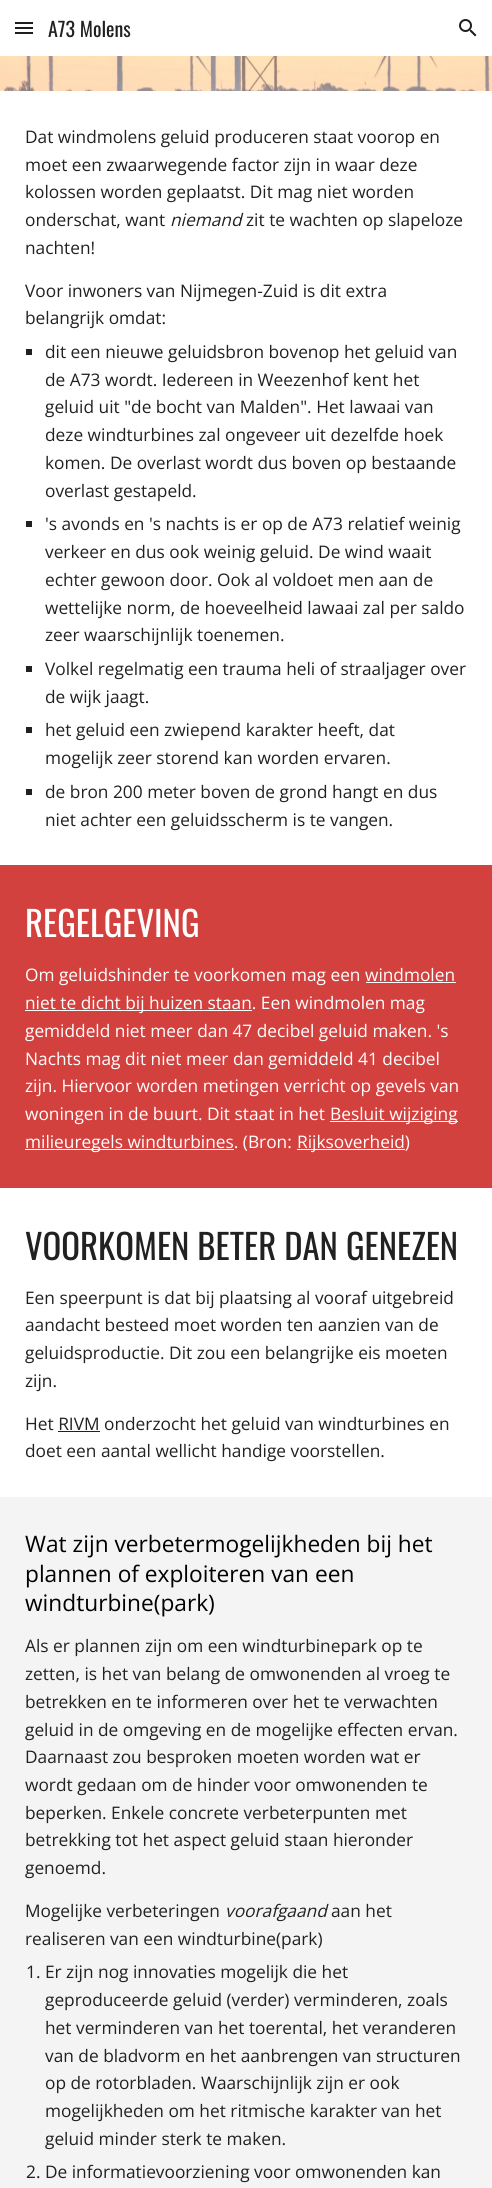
#include <cairo/cairo.h>
#include <math.h>
#include <stddef.h>


static void draw_image(cairo_t *cr, const char *path, double x, double y, double w, double h) {
  cairo_surface_t *image = cairo_image_surface_create_from_png(path);
  cairo_save(cr);
  cairo_set_source_surface(cr, image, x, y);
  cairo_rectangle(cr, x, y, w, h);
  cairo_fill(cr);
  cairo_restore(cr);
  cairo_surface_destroy(image);
}

static void draw(cairo_t *cr) {
  cairo_set_source_rgb(cr, 1, 1, 1);
  cairo_paint(cr);
  cairo_set_source_rgb(cr, 31 / 255.0, 31 / 255.0, 31 / 255.0);
  cairo_rectangle(cr, 15, 22, 18, 2);
  cairo_fill(cr);
  cairo_rectangle(cr, 15, 27, 18, 2);
  cairo_fill(cr);
  cairo_rectangle(cr, 15, 32, 18, 2);
  cairo_fill(cr);
  draw_image(cr, "images/1.png", 459, 19, 18, 18);
  draw_image(cr, "images/2.png", 0, 56, 492, 35);
  cairo_set_source_rgb(cr, 33 / 255.0, 33 / 255.0, 33 / 255.0);
  cairo_rectangle(cr, 26, 349, 6, 6);
  cairo_fill(cr);
  cairo_rectangle(cr, 26, 521, 6, 6);
  cairo_fill(cr);
  cairo_rectangle(cr, 26, 666, 6, 6);
  cairo_fill(cr);
  cairo_rectangle(cr, 26, 727, 6, 6);
  cairo_fill(cr);
  cairo_rectangle(cr, 26, 789, 6, 6);
  cairo_fill(cr);
  cairo_set_source_rgb(cr, 211 / 255.0, 65 / 255.0, 63 / 255.0);
  cairo_rectangle(cr, 0, 865, 492, 323);
  cairo_fill(cr);
  cairo_set_source_rgb(cr, 1, 1, 1);
  cairo_rectangle(cr, 366, 982, 90, 1);
  cairo_fill(cr);
  cairo_rectangle(cr, 25, 1010, 227, 1);
  cairo_fill(cr);
  cairo_rectangle(cr, 330, 1121, 128, 1);
  cairo_fill(cr);
  cairo_rectangle(cr, 25, 1149, 209, 1);
  cairo_fill(cr);
  cairo_rectangle(cr, 297, 1149, 108, 1);
  cairo_fill(cr);
  cairo_set_source_rgb(cr, 33 / 255.0, 33 / 255.0, 33 / 255.0);
  cairo_rectangle(cr, 58, 1431, 42, 1);
  cairo_fill(cr);
  cairo_set_source_rgb(cr, 244 / 255.0, 244 / 255.0, 244 / 255.0);
  cairo_rectangle(cr, 0, 1497, 492, 691);
  cairo_fill(cr);
  cairo_select_font_face(cr, "Oswald", CAIRO_FONT_SLANT_NORMAL, CAIRO_FONT_WEIGHT_NORMAL);
  cairo_set_font_size(cr, 20);
  cairo_set_source_rgb(cr, 33 / 255.0, 33 / 255.0, 33 / 255.0);
  cairo_move_to(cr, 48, 37);
  cairo_show_text(cr, "A73 Molens");
  cairo_select_font_face(cr, "Open Sans", CAIRO_FONT_SLANT_NORMAL, CAIRO_FONT_WEIGHT_NORMAL);
  cairo_set_font_size(cr, 17.3);
  cairo_move_to(cr, 25, 143);
  cairo_show_text(cr, "Dat windmolens geluid produceren staat voorop en");
  cairo_move_to(cr, 25, 171);
  cairo_show_text(cr, "moet een zwaarwegende factor zijn in waar deze");
  cairo_move_to(cr, 25, 198);
  cairo_show_text(cr, "kolossen worden geplaatst. Dit mag niet worden");
  cairo_move_to(cr, 25, 226);
  cairo_show_text(cr, "onderschat, want");
  cairo_select_font_face(cr, "Open Sans", CAIRO_FONT_SLANT_ITALIC, CAIRO_FONT_WEIGHT_NORMAL);
  cairo_move_to(cr, 170, 226);
  cairo_show_text(cr, "niemand");
  cairo_select_font_face(cr, "Open Sans", CAIRO_FONT_SLANT_NORMAL, CAIRO_FONT_WEIGHT_NORMAL);
  cairo_move_to(cr, 246, 226);
  cairo_show_text(cr, "zit te wachten op slapeloze");
  cairo_move_to(cr, 25, 254);
  cairo_show_text(cr, "nachten!");
  cairo_move_to(cr, 25, 297);
  cairo_show_text(cr, "Voor inwoners van Nijmegen-Zuid is dit extra");
  cairo_move_to(cr, 25, 324);
  cairo_show_text(cr, "belangrijk omdat:");
  cairo_move_to(cr, 45, 358);
  cairo_show_text(cr, "dit een nieuwe geluidsbron bovenop het geluid van");
  cairo_move_to(cr, 45, 386);
  cairo_show_text(cr, "de A73 wordt. Iedereen in Weezenhof kent het");
  cairo_move_to(cr, 45, 413);
  cairo_show_text(cr, "geluid uit \"de bocht van Malden\". Het lawaai van");
  cairo_move_to(cr, 45, 441);
  cairo_show_text(cr, "deze windturbines zal ongeveer uit dezelfde hoek");
  cairo_move_to(cr, 45, 469);
  cairo_show_text(cr, "komen. De overlast wordt dus boven op bestaande");
  cairo_move_to(cr, 45, 497);
  cairo_show_text(cr, "overlast gestapeld.");
  cairo_move_to(cr, 45, 530);
  cairo_show_text(cr, "'s avonds en 's nachts is er op de A73 relatief weinig");
  cairo_move_to(cr, 45, 558);
  cairo_show_text(cr, "verkeer en dus ook weinig geluid. De wind waait");
  cairo_move_to(cr, 45, 586);
  cairo_show_text(cr, "echter gewoon door. Ook al voldoet men aan de");
  cairo_move_to(cr, 45, 614);
  cairo_show_text(cr, "wettelijke norm, de hoeveelheid lawaai zal per saldo");
  cairo_move_to(cr, 45, 641);
  cairo_show_text(cr, "zeer waarschijnlijk toenemen.");
  cairo_move_to(cr, 45, 675);
  cairo_show_text(cr, "Volkel regelmatig een trauma heli of straaljager over");
  cairo_move_to(cr, 45, 703);
  cairo_show_text(cr, "de wijk jaagt.");
  cairo_move_to(cr, 45, 736);
  cairo_show_text(cr, "het geluid een zwiepend karakter heeft, dat");
  cairo_move_to(cr, 45, 764);
  cairo_show_text(cr, "mogelijk zeer storend kan worden ervaren.");
  cairo_move_to(cr, 45, 798);
  cairo_show_text(cr, "de bron 200 meter boven de grond hangt en dus");
  cairo_move_to(cr, 45, 826);
  cairo_show_text(cr, "niet achter een geluidsscherm is te vangen.");
  cairo_select_font_face(cr, "Oswald", CAIRO_FONT_SLANT_NORMAL, CAIRO_FONT_WEIGHT_NORMAL);
  cairo_set_font_size(cr, 34.75);
  cairo_set_source_rgb(cr, 1, 1, 1);
  cairo_move_to(cr, 25, 937);
  cairo_show_text(cr, "REGELGEVING");
  cairo_select_font_face(cr, "Open Sans", CAIRO_FONT_SLANT_NORMAL, CAIRO_FONT_WEIGHT_NORMAL);
  cairo_set_font_size(cr, 17.3);
  cairo_move_to(cr, 25, 981);
  cairo_show_text(cr, "Om geluidshinder te voorkomen mag een windmolen");
  cairo_move_to(cr, 25, 1009);
  cairo_show_text(cr, "niet te dicht bij huizen staan. Een windmolen mag");
  cairo_move_to(cr, 25, 1037);
  cairo_show_text(cr, "gemiddeld niet meer dan 47 decibel geluid maken. 's");
  cairo_move_to(cr, 25, 1065);
  cairo_show_text(cr, "Nachts mag dit niet meer dan gemiddeld 41 decibel");
  cairo_move_to(cr, 25, 1092);
  cairo_show_text(cr, "zijn. Hiervoor worden metingen verricht op gevels van");
  cairo_move_to(cr, 25, 1120);
  cairo_show_text(cr, "woningen in de buurt. Dit staat in het");
  cairo_move_to(cr, 330, 1120);
  cairo_show_text(cr, "Besluit wijziging");
  cairo_move_to(cr, 25, 1148);
  cairo_show_text(cr, "milieuregels windturbines. (Bron:");
  cairo_move_to(cr, 297, 1148);
  cairo_show_text(cr, "Rijksoverheid)");
  cairo_select_font_face(cr, "Oswald", CAIRO_FONT_SLANT_NORMAL, CAIRO_FONT_WEIGHT_NORMAL);
  cairo_set_font_size(cr, 34.75);
  cairo_set_source_rgb(cr, 33 / 255.0, 33 / 255.0, 33 / 255.0);
  cairo_move_to(cr, 25, 1260);
  cairo_show_text(cr, "VOORKOMEN BETER DAN GENEZEN");
  cairo_select_font_face(cr, "Open Sans", CAIRO_FONT_SLANT_NORMAL, CAIRO_FONT_WEIGHT_NORMAL);
  cairo_set_font_size(cr, 17.3);
  cairo_move_to(cr, 25, 1304);
  cairo_show_text(cr, "Een speerpunt is dat bij plaatsing al vooraf uitgebreid");
  cairo_move_to(cr, 25, 1331);
  cairo_show_text(cr, "aandacht besteed moet worden ten aanzien van de");
  cairo_move_to(cr, 25, 1359);
  cairo_show_text(cr, "geluidsproductie. Dit zou een belangrijke eis moeten");
  cairo_move_to(cr, 25, 1387);
  cairo_show_text(cr, "zijn.");
  cairo_move_to(cr, 25, 1430);
  cairo_show_text(cr, "Het RIVM onderzocht het geluid van windturbines en");
  cairo_move_to(cr, 25, 1457);
  cairo_show_text(cr, "doet een aantal wellicht handige voorstellen.");
  cairo_set_font_size(cr, 22.7);
  cairo_set_source_rgb(cr, 0, 0, 0);
  cairo_move_to(cr, 25, 1552);
  cairo_show_text(cr, "Wat zijn verbetermogelijkheden bij het");
  cairo_move_to(cr, 25, 1582);
  cairo_show_text(cr, "plannen of exploiteren van een");
  cairo_move_to(cr, 25, 1611);
  cairo_show_text(cr, "windturbine(park)");
  cairo_set_font_size(cr, 17.3);
  cairo_set_source_rgb(cr, 33 / 255.0, 33 / 255.0, 33 / 255.0);
  cairo_move_to(cr, 25, 1652);
  cairo_show_text(cr, "Als er plannen zijn om een windturbinepark op te");
  cairo_move_to(cr, 25, 1680);
  cairo_show_text(cr, "zetten, is het van belang de omwonenden al vroeg te");
  cairo_move_to(cr, 25, 1708);
  cairo_show_text(cr, "betrekken en te informeren over het te verwachten");
  cairo_move_to(cr, 25, 1736);
  cairo_show_text(cr, "geluid in de omgeving en de mogelijke effecten ervan.");
  cairo_move_to(cr, 25, 1763);
  cairo_show_text(cr, "Daarnaast zou besproken moeten worden wat er");
  cairo_move_to(cr, 25, 1791);
  cairo_show_text(cr, "wordt gedaan om de hinder voor omwonenden te");
  cairo_move_to(cr, 25, 1819);
  cairo_show_text(cr, "beperken. Enkele concrete verbeterpunten met");
  cairo_move_to(cr, 25, 1846);
  cairo_show_text(cr, "betrekking tot het aspect geluid staan hieronder");
  cairo_move_to(cr, 25, 1874);
  cairo_show_text(cr, "genoemd.");
  cairo_move_to(cr, 25, 1917);
  cairo_show_text(cr, "Mogelijke verbeteringen");
  cairo_select_font_face(cr, "Open Sans", CAIRO_FONT_SLANT_ITALIC, CAIRO_FONT_WEIGHT_NORMAL);
  cairo_move_to(cr, 225, 1917);
  cairo_show_text(cr, "voorafgaand");
  cairo_select_font_face(cr, "Open Sans", CAIRO_FONT_SLANT_NORMAL, CAIRO_FONT_WEIGHT_NORMAL);
  cairo_move_to(cr, 331, 1917);
  cairo_show_text(cr, "aan het");
  cairo_move_to(cr, 25, 1945);
  cairo_show_text(cr, "realiseren van een windturbine(park)");
  cairo_move_to(cr, 26, 1978);
  cairo_show_text(cr, "1. Er zijn nog innovaties mogelijk die het");
  cairo_move_to(cr, 45, 2006);
  cairo_show_text(cr, "geproduceerde geluid (verder) verminderen, zoals");
  cairo_move_to(cr, 45, 2034);
  cairo_show_text(cr, "het verminderen van het toerental, het veranderen");
  cairo_move_to(cr, 45, 2062);
  cairo_show_text(cr, "van de bladvorm en het aanbrengen van structuren");
  cairo_move_to(cr, 45, 2089);
  cairo_show_text(cr, "op de rotorbladen. Waarschijnlijk zijn er ook");
  cairo_move_to(cr, 45, 2117);
  cairo_show_text(cr, "mogelijkheden om het ritmische karakter van het");
  cairo_move_to(cr, 45, 2145);
  cairo_show_text(cr, "geluid minder sterk te maken.");
  cairo_move_to(cr, 26, 2178);
  cairo_show_text(cr, "2. De informatievoorziening voor omwonenden kan");
}

int main(void) {
  cairo_surface_t *surface = cairo_image_surface_create(CAIRO_FORMAT_RGB24, 492, 2188);
  cairo_t *cr = cairo_create(surface);
  cairo_font_options_t *options = cairo_font_options_create();
  cairo_font_options_set_hint_metrics(options, CAIRO_HINT_METRICS_OFF);
  cairo_font_options_set_hint_style(options, CAIRO_HINT_STYLE_NONE);
  cairo_set_font_options(cr, options);
  cairo_set_miter_limit(cr, 4);
  draw(cr);
  cairo_surface_write_to_png(surface, "out.png");
  cairo_font_options_destroy(options);
  cairo_destroy(cr);
  cairo_surface_destroy(surface);
  return 0;
}
